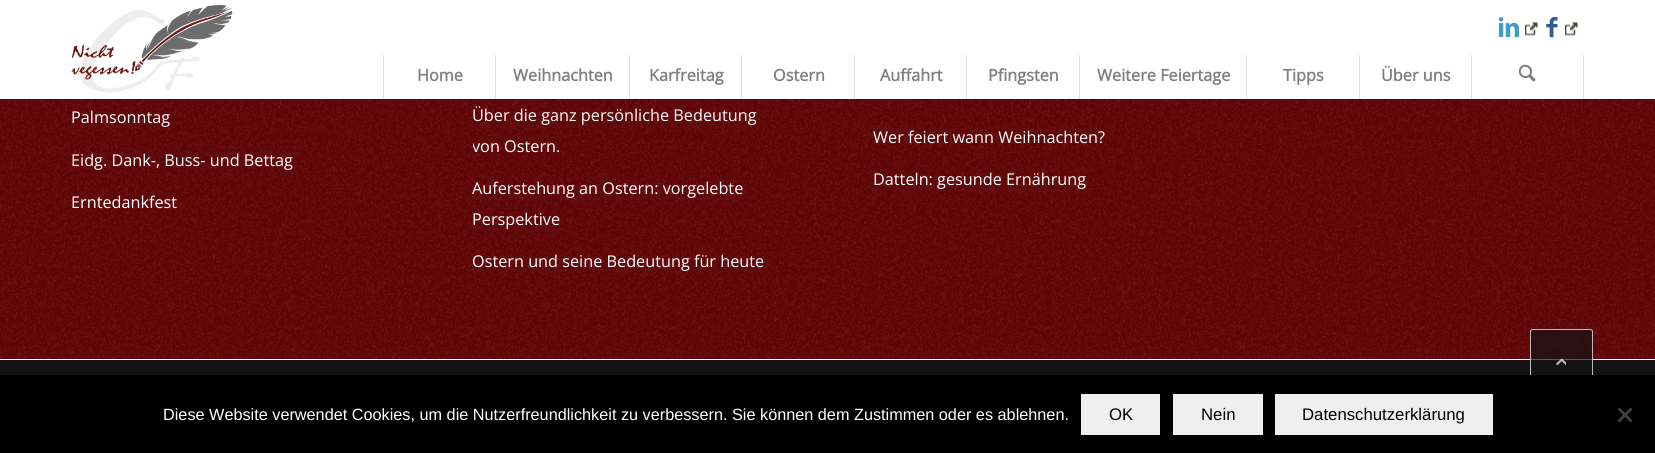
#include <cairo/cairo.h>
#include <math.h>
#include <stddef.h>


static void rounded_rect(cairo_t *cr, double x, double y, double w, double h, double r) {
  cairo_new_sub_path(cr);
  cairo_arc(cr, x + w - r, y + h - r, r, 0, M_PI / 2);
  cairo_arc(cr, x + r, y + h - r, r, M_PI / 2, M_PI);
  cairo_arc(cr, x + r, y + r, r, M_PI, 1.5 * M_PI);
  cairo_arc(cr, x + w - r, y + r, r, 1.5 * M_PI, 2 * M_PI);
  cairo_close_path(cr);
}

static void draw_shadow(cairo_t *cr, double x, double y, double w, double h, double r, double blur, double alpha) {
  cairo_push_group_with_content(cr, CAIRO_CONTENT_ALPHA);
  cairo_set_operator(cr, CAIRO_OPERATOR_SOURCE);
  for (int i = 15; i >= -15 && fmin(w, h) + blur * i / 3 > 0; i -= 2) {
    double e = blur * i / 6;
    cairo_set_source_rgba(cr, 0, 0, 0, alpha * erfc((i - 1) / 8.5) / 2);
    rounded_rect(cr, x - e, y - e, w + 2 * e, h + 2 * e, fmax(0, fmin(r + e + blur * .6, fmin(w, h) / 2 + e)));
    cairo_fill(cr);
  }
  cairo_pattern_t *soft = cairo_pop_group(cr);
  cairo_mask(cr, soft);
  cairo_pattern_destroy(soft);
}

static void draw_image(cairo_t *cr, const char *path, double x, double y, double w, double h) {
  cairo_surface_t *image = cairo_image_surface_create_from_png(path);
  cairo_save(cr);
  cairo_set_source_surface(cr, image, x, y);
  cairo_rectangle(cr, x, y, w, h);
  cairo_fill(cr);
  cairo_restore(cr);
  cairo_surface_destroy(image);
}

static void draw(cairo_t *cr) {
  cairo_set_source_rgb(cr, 107 / 255.0, 6 / 255.0, 9 / 255.0);
  cairo_paint(cr);
  draw_image(cr, "images/6.png", 0, 99, 1655, 260);
  cairo_set_source_rgb(cr, 0, 0, 0);
  draw_shadow(cr, -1, -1, 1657, 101, 0, 1, 0.1);
  cairo_set_source_rgb(cr, 1, 1, 1);
  cairo_rectangle(cr, 0, 0, 1655, 99);
  cairo_fill(cr);
  draw_image(cr, "images/1.png", 1498, 17, 21, 21);
  draw_image(cr, "images/2.png", 1525, 22, 13, 14);
  draw_image(cr, "images/3.png", 1546, 17, 12, 21);
  draw_image(cr, "images/2.png", 1565, 22, 13, 14);
  draw_image(cr, "images/4.png", 71, 5, 162, 88);
  cairo_set_source_rgb(cr, 225 / 255.0, 225 / 255.0, 225 / 255.0);
  cairo_rectangle(cr, 383, 55, 1, 44);
  cairo_fill(cr);
  cairo_rectangle(cr, 495, 55, 1, 44);
  cairo_fill(cr);
  cairo_rectangle(cr, 629, 55, 1, 44);
  cairo_fill(cr);
  cairo_rectangle(cr, 741, 55, 1, 44);
  cairo_fill(cr);
  cairo_rectangle(cr, 854, 55, 1, 44);
  cairo_fill(cr);
  cairo_rectangle(cr, 966, 55, 1, 44);
  cairo_fill(cr);
  cairo_rectangle(cr, 1079, 55, 1, 44);
  cairo_fill(cr);
  cairo_rectangle(cr, 1246, 55, 1, 44);
  cairo_fill(cr);
  cairo_rectangle(cr, 1359, 55, 1, 44);
  cairo_fill(cr);
  cairo_rectangle(cr, 1583, 55, 1, 44);
  cairo_fill(cr);
  cairo_rectangle(cr, 1471, 55, 1, 44);
  cairo_fill(cr);
  draw_image(cr, "images/5.png", 1519, 64, 17, 18);
  cairo_set_source_rgb(cr, 20 / 255.0, 20 / 255.0, 20 / 255.0);
  cairo_rectangle(cr, 0, 360, 1655, 15);
  cairo_fill(cr);
  cairo_set_source_rgb(cr, 1, 1, 1);
  cairo_rectangle(cr, 0, 359, 1655, 1);
  cairo_fill(cr);
  cairo_set_source_rgba(cr, 20 / 255.0, 20 / 255.0, 20 / 255.0, 0.7);
  rounded_rect(cr, 1530, 329, 63, 62, 2.5);
  cairo_fill(cr);
  rounded_rect(cr, 1530.5, 329.5, 62, 61, 2);
  cairo_set_source_rgba(cr, 1, 1, 1, 0.7);
  cairo_set_line_width(cr, 1);
  cairo_stroke(cr);
  draw_image(cr, "images/7.png", 1556, 358, 10, 7);
  cairo_set_source_rgb(cr, 0, 0, 0);
  cairo_rectangle(cr, 0, 375, 1655, 78);
  cairo_fill(cr);
  cairo_set_source_rgb(cr, 239 / 255.0, 239 / 255.0, 239 / 255.0);
  cairo_rectangle(cr, 1081, 394, 79, 41);
  cairo_fill(cr);
  cairo_rectangle(cr, 1173, 394, 90, 41);
  cairo_fill(cr);
  cairo_rectangle(cr, 1275, 394, 218, 41);
  cairo_fill(cr);
  cairo_set_source_rgb(cr, 64 / 255.0, 64 / 255.0, 64 / 255.0);
  cairo_new_path(cr);
  cairo_move_to(cr, 1630.5, 407.5);
  cairo_line_to(cr, 1632.5, 409.5);
  cairo_line_to(cr, 1619.5, 422.5);
  cairo_line_to(cr, 1617.5, 420.5);
  cairo_close_path(cr);
  cairo_fill(cr);
  cairo_new_path(cr);
  cairo_move_to(cr, 1617.5, 409.5);
  cairo_line_to(cr, 1619.5, 407.5);
  cairo_line_to(cr, 1632.5, 420.5);
  cairo_line_to(cr, 1630.5, 422.5);
  cairo_close_path(cr);
  cairo_fill(cr);
  cairo_select_font_face(cr, "Open Sans", CAIRO_FONT_SLANT_NORMAL, CAIRO_FONT_WEIGHT_BOLD);
  cairo_set_font_size(cr, 16.25);
  cairo_set_source_rgb(cr, 128 / 255.0, 128 / 255.0, 128 / 255.0);
  cairo_move_to(cr, 417, 81);
  cairo_show_text(cr, "Home");
  cairo_move_to(cr, 513, 81);
  cairo_show_text(cr, "Weihnachten");
  cairo_move_to(cr, 649, 81);
  cairo_show_text(cr, "Karfreitag");
  cairo_move_to(cr, 773, 81);
  cairo_show_text(cr, "Ostern");
  cairo_move_to(cr, 880, 81);
  cairo_show_text(cr, "Auffahrt");
  cairo_move_to(cr, 988, 81);
  cairo_show_text(cr, "Pfingsten");
  cairo_move_to(cr, 1097, 81);
  cairo_show_text(cr, "Weitere Feiertage");
  cairo_move_to(cr, 1283, 81);
  cairo_show_text(cr, "Tipps");
  cairo_move_to(cr, 1381, 81);
  cairo_show_text(cr, "Über uns");
  cairo_select_font_face(cr, "Open Sans", CAIRO_FONT_SLANT_NORMAL, CAIRO_FONT_WEIGHT_NORMAL);
  cairo_set_source_rgb(cr, 1, 1, 1);
  cairo_move_to(cr, 71, 123);
  cairo_show_text(cr, "Palmsonntag");
  cairo_move_to(cr, 71, 166);
  cairo_show_text(cr, "Eidg. Dank-, Buss- und Bettag");
  cairo_move_to(cr, 71, 208);
  cairo_show_text(cr, "Erntedankfest");
  cairo_move_to(cr, 472, 121);
  cairo_show_text(cr, "Über die ganz persönliche Bedeutung");
  cairo_save(cr);
  cairo_rectangle(cr, 473, 0, 310, 285);
  cairo_clip(cr);
  cairo_move_to(cr, 472, 152);
  cairo_show_text(cr, "von Ostern.");
  cairo_restore(cr);
  cairo_move_to(cr, 472, 194);
  cairo_show_text(cr, "Auferstehung an Ostern: vorgelebte");
  cairo_move_to(cr, 472, 225);
  cairo_show_text(cr, "Perspektive");
  cairo_move_to(cr, 472, 267);
  cairo_show_text(cr, "Ostern und seine Bedeutung für heute");
  cairo_move_to(cr, 873, 143);
  cairo_show_text(cr, "Wer feiert wann Weihnachten?");
  cairo_move_to(cr, 873, 185);
  cairo_show_text(cr, "Datteln: gesunde Ernährung");
  cairo_select_font_face(cr, "Liberation Sans", CAIRO_FONT_SLANT_NORMAL, CAIRO_FONT_WEIGHT_NORMAL);
  cairo_move_to(cr, 163, 420);
  cairo_show_text(cr, "Diese Website verwendet Cookies, um die Nutzerfreundlichkeit zu verbessern. Sie können dem Zustimmen oder es ablehnen.");
  cairo_set_font_size(cr, 16.75);
  cairo_set_source_rgb(cr, 0, 0, 0);
  cairo_move_to(cr, 1109, 420);
  cairo_show_text(cr, "OK");
  cairo_move_to(cr, 1201, 420);
  cairo_show_text(cr, "Nein");
  cairo_move_to(cr, 1302, 420);
  cairo_show_text(cr, "Datenschutzerklärung");
}

int main(void) {
  cairo_surface_t *surface = cairo_image_surface_create(CAIRO_FORMAT_RGB24, 1655, 453);
  cairo_t *cr = cairo_create(surface);
  cairo_font_options_t *options = cairo_font_options_create();
  cairo_font_options_set_hint_metrics(options, CAIRO_HINT_METRICS_OFF);
  cairo_font_options_set_hint_style(options, CAIRO_HINT_STYLE_NONE);
  cairo_set_font_options(cr, options);
  cairo_set_miter_limit(cr, 4);
  draw(cr);
  cairo_surface_write_to_png(surface, "out.png");
  cairo_font_options_destroy(options);
  cairo_destroy(cr);
  cairo_surface_destroy(surface);
  return 0;
}
